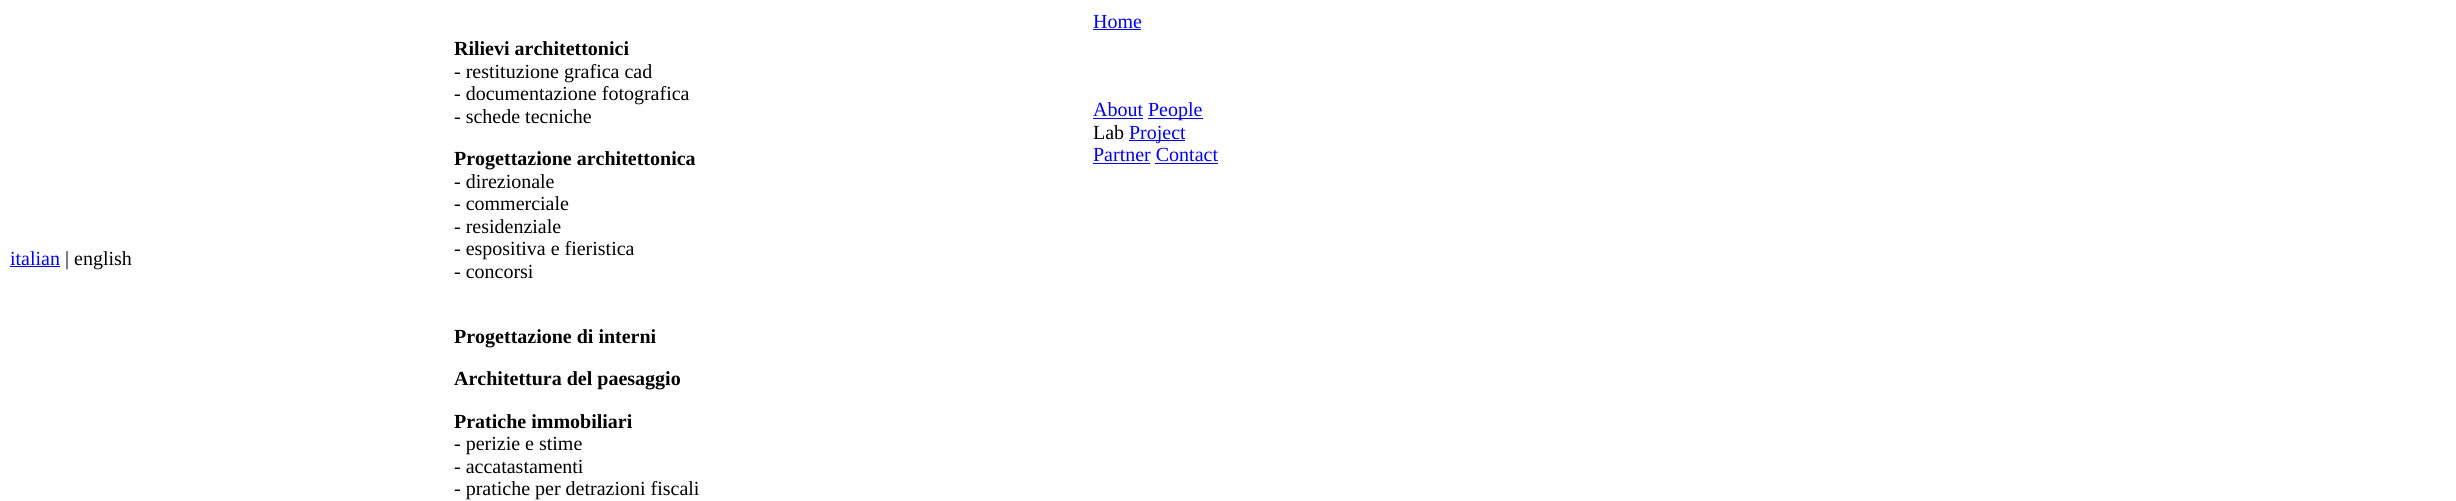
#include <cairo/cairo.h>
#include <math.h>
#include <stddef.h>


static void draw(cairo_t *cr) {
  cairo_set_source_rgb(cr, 1, 1, 1);
  cairo_paint(cr);
  cairo_set_source_rgb(cr, 0, 0, 238 / 255.0);
  cairo_rectangle(cr, 10, 266, 50, 1);
  cairo_fill(cr);
  cairo_rectangle(cr, 1093, 29, 48, 1);
  cairo_fill(cr);
  cairo_rectangle(cr, 1093, 118, 50, 1);
  cairo_fill(cr);
  cairo_rectangle(cr, 1148, 118, 55, 1);
  cairo_fill(cr);
  cairo_rectangle(cr, 1129, 140, 56, 1);
  cairo_fill(cr);
  cairo_rectangle(cr, 1093, 163, 57, 1);
  cairo_fill(cr);
  cairo_rectangle(cr, 1155, 163, 63, 1);
  cairo_fill(cr);
  cairo_select_font_face(cr, "Liberation Serif", CAIRO_FONT_SLANT_NORMAL, CAIRO_FONT_WEIGHT_NORMAL);
  cairo_set_font_size(cr, 20);
  cairo_move_to(cr, 10, 265);
  cairo_show_text(cr, "italian");
  cairo_set_source_rgb(cr, 0, 0, 0);
  cairo_move_to(cr, 65, 265);
  cairo_show_text(cr, "| english");
  cairo_select_font_face(cr, "Liberation Serif", CAIRO_FONT_SLANT_NORMAL, CAIRO_FONT_WEIGHT_BOLD);
  cairo_move_to(cr, 454, 55);
  cairo_show_text(cr, "Rilievi architettonici");
  cairo_select_font_face(cr, "Liberation Serif", CAIRO_FONT_SLANT_NORMAL, CAIRO_FONT_WEIGHT_NORMAL);
  cairo_move_to(cr, 454, 78);
  cairo_show_text(cr, "- restituzione grafica cad");
  cairo_move_to(cr, 454, 100);
  cairo_show_text(cr, "- documentazione fotografica");
  cairo_move_to(cr, 454, 123);
  cairo_show_text(cr, "- schede tecniche");
  cairo_select_font_face(cr, "Liberation Serif", CAIRO_FONT_SLANT_NORMAL, CAIRO_FONT_WEIGHT_BOLD);
  cairo_move_to(cr, 454, 165);
  cairo_show_text(cr, "Progettazione architettonica");
  cairo_select_font_face(cr, "Liberation Serif", CAIRO_FONT_SLANT_NORMAL, CAIRO_FONT_WEIGHT_NORMAL);
  cairo_move_to(cr, 454, 188);
  cairo_show_text(cr, "- direzionale");
  cairo_move_to(cr, 454, 210);
  cairo_show_text(cr, "- commerciale");
  cairo_move_to(cr, 454, 233);
  cairo_show_text(cr, "- residenziale");
  cairo_move_to(cr, 454, 255);
  cairo_show_text(cr, "- espositiva e fieristica");
  cairo_move_to(cr, 454, 278);
  cairo_show_text(cr, "- concorsi");
  cairo_select_font_face(cr, "Liberation Serif", CAIRO_FONT_SLANT_NORMAL, CAIRO_FONT_WEIGHT_BOLD);
  cairo_move_to(cr, 454, 343);
  cairo_show_text(cr, "Progettazione di interni");
  cairo_move_to(cr, 454, 385);
  cairo_show_text(cr, "Architettura del paesaggio");
  cairo_move_to(cr, 454, 428);
  cairo_show_text(cr, "Pratiche immobiliari");
  cairo_select_font_face(cr, "Liberation Serif", CAIRO_FONT_SLANT_NORMAL, CAIRO_FONT_WEIGHT_NORMAL);
  cairo_move_to(cr, 454, 450);
  cairo_show_text(cr, "- perizie e stime");
  cairo_move_to(cr, 454, 473);
  cairo_show_text(cr, "- accatastamenti");
  cairo_move_to(cr, 454, 495);
  cairo_show_text(cr, "- pratiche per detrazioni fiscali");
  cairo_set_source_rgb(cr, 0, 0, 238 / 255.0);
  cairo_move_to(cr, 1093, 28);
  cairo_show_text(cr, "Home");
  cairo_move_to(cr, 1093, 116);
  cairo_show_text(cr, "About");
  cairo_move_to(cr, 1148, 116);
  cairo_show_text(cr, "People");
  cairo_set_source_rgb(cr, 0, 0, 0);
  cairo_move_to(cr, 1093, 139);
  cairo_show_text(cr, "Lab");
  cairo_set_source_rgb(cr, 0, 0, 238 / 255.0);
  cairo_move_to(cr, 1129, 139);
  cairo_show_text(cr, "Project");
  cairo_move_to(cr, 1093, 161);
  cairo_show_text(cr, "Partner Contact");
}

int main(void) {
  cairo_surface_t *surface = cairo_image_surface_create(CAIRO_FORMAT_RGB24, 2456, 501);
  cairo_t *cr = cairo_create(surface);
  cairo_font_options_t *options = cairo_font_options_create();
  cairo_font_options_set_hint_metrics(options, CAIRO_HINT_METRICS_OFF);
  cairo_font_options_set_hint_style(options, CAIRO_HINT_STYLE_NONE);
  cairo_set_font_options(cr, options);
  cairo_set_miter_limit(cr, 4);
  draw(cr);
  cairo_surface_write_to_png(surface, "out.png");
  cairo_font_options_destroy(options);
  cairo_destroy(cr);
  cairo_surface_destroy(surface);
  return 0;
}
